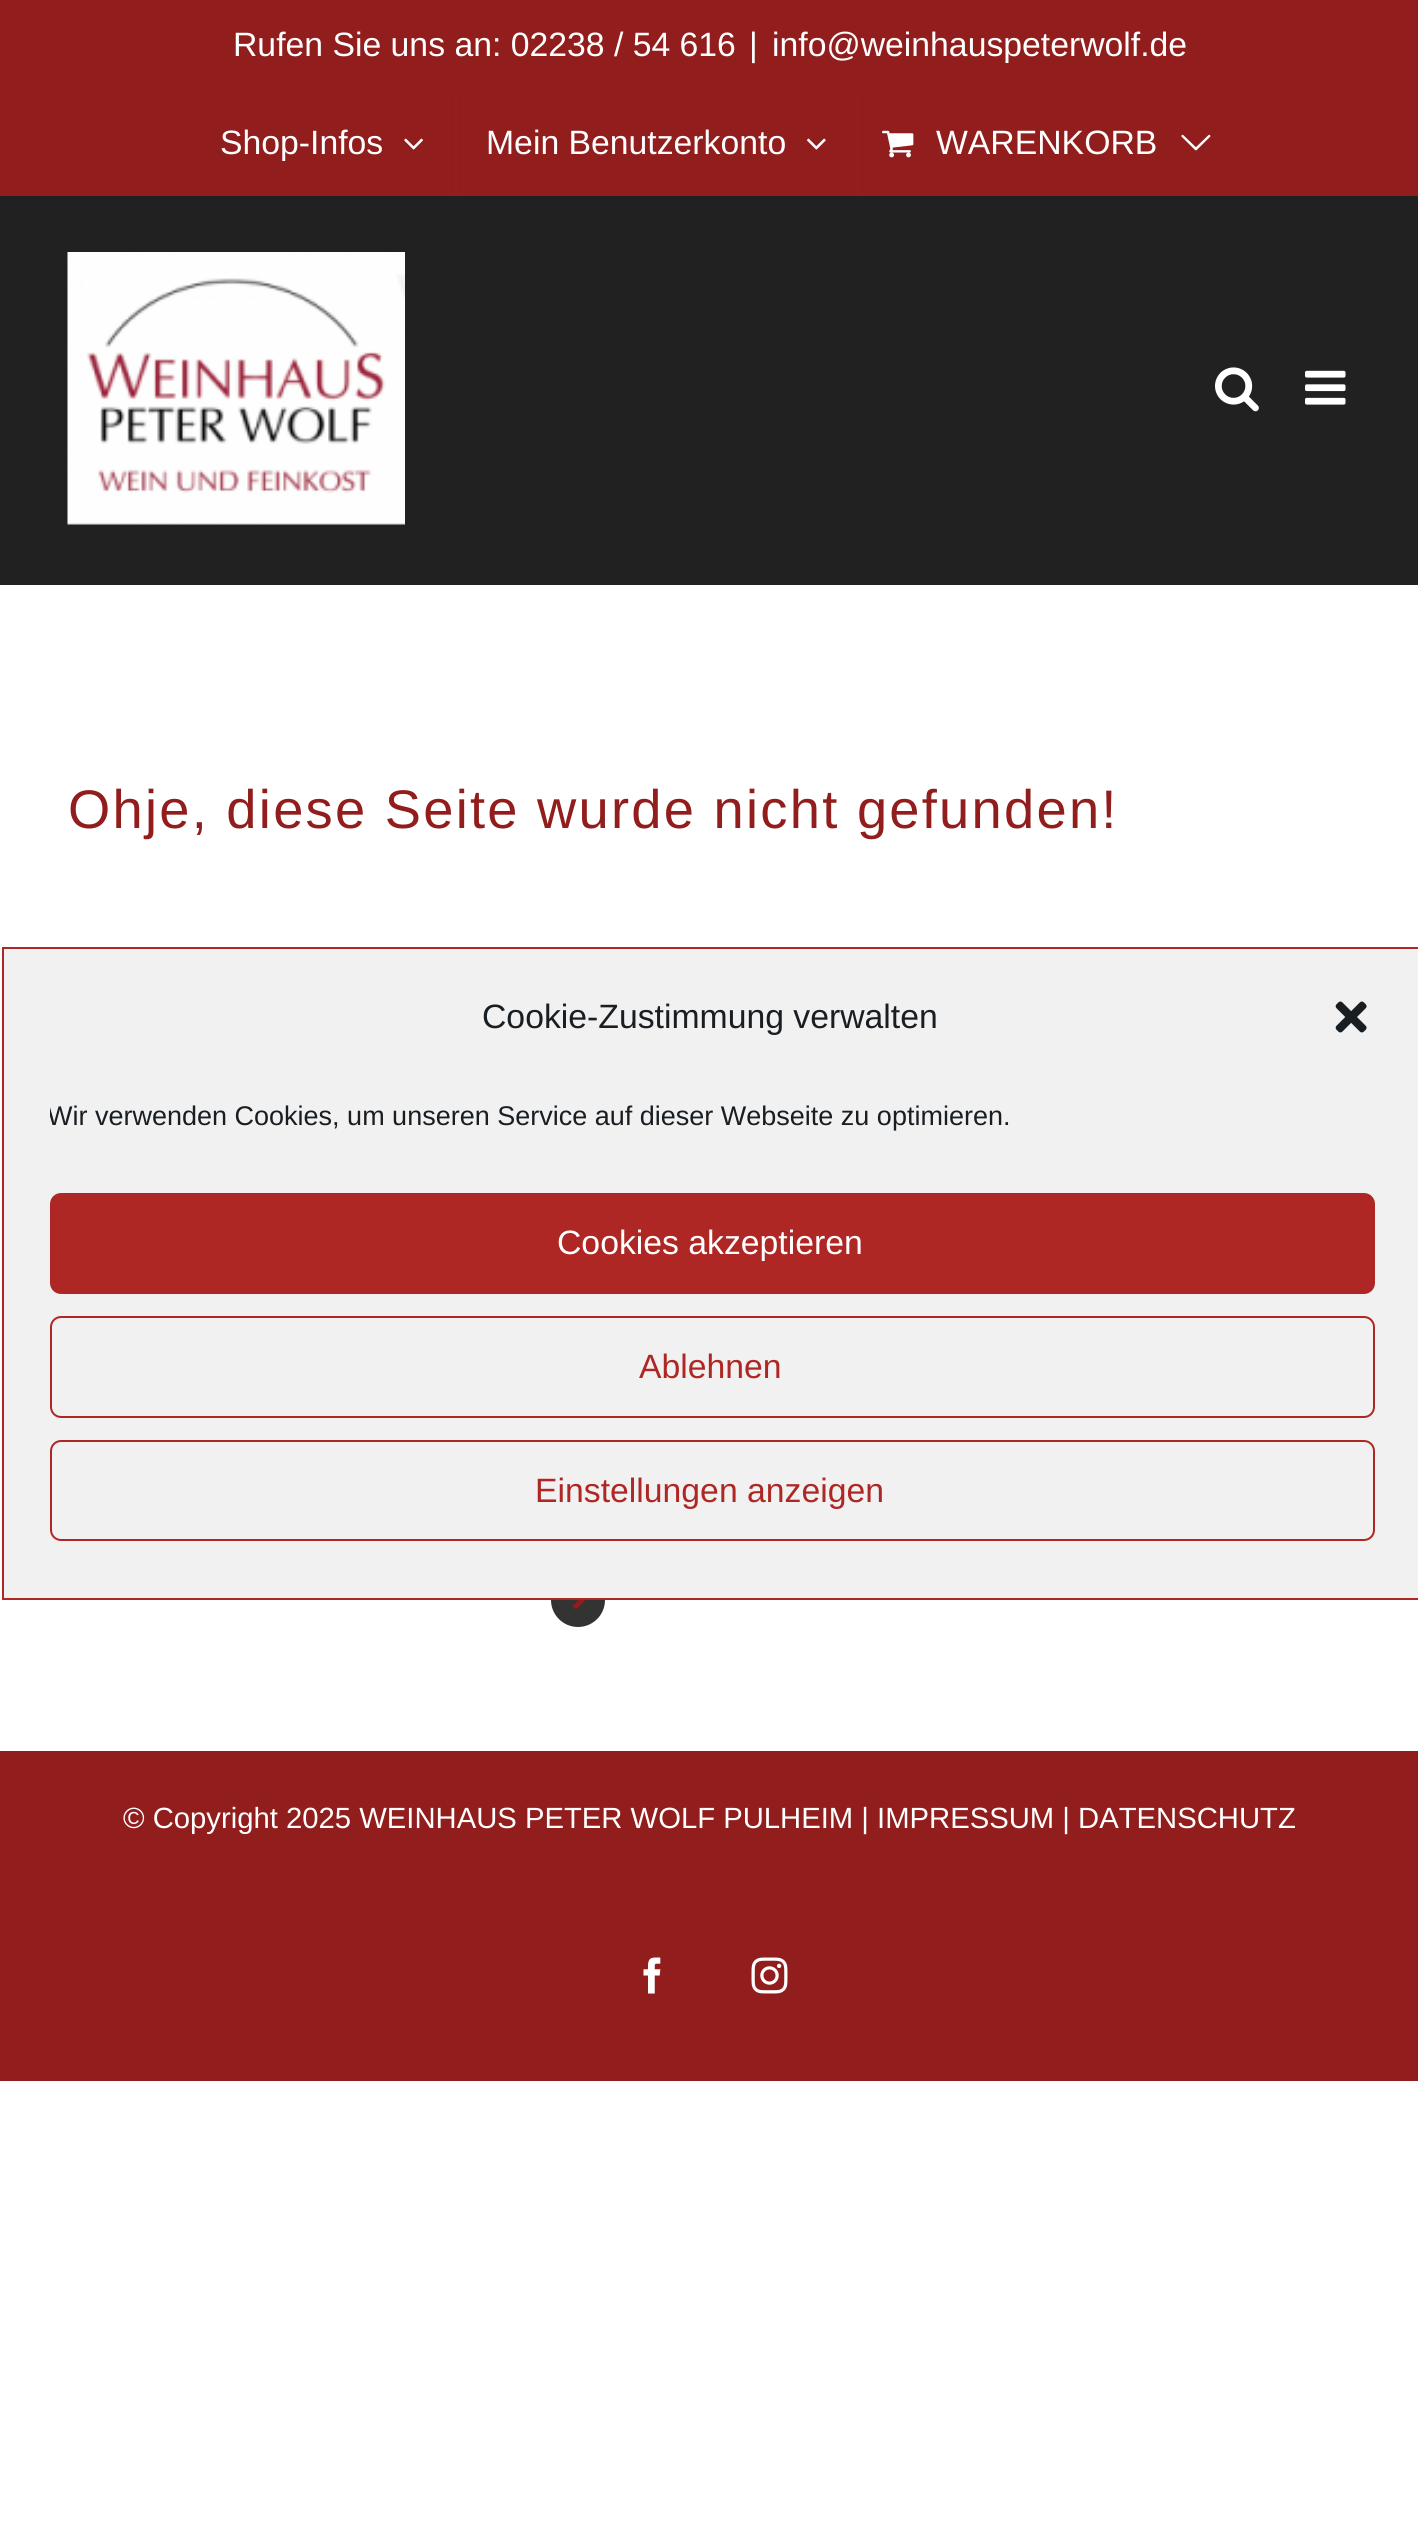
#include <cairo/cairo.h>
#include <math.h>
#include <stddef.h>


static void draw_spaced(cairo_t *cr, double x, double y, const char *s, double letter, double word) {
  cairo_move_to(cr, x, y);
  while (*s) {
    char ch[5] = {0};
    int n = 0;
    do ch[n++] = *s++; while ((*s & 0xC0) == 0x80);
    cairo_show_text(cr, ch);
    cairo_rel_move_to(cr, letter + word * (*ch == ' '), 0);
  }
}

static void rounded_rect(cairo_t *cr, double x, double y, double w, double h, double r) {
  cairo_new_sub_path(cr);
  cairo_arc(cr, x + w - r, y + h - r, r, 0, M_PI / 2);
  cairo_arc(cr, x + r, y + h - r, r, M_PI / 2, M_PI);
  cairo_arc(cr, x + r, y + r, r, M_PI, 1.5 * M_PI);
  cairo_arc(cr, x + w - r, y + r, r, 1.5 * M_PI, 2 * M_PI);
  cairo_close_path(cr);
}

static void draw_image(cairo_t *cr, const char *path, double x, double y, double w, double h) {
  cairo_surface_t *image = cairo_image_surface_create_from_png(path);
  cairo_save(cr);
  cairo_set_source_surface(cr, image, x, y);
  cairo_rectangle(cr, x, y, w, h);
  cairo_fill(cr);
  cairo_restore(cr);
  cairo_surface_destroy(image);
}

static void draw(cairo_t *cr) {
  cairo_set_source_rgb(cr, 1, 1, 1);
  cairo_paint(cr);
  cairo_set_source_rgb(cr, 145 / 255.0, 29 / 255.0, 29 / 255.0);
  cairo_rectangle(cr, 0, 0, 1418, 196);
  cairo_fill(cr);
  draw_image(cr, "images/1.png", 404, 138, 19, 12);
  cairo_set_source_rgb(cr, 153 / 255.0, 29 / 255.0, 29 / 255.0);
  cairo_rectangle(cr, 455, 95, 2, 99);
  cairo_fill(cr);
  draw_image(cr, "images/2.png", 807, 138, 19, 12);
  cairo_rectangle(cr, 857, 95, 2, 99);
  cairo_fill(cr);
  draw_image(cr, "images/3.png", 882, 130, 32, 28);
  draw_image(cr, "images/4.png", 1181, 134, 30, 17);
  cairo_set_source_rgb(cr, 33 / 255.0, 33 / 255.0, 33 / 255.0);
  cairo_rectangle(cr, 0, 196, 1418, 389);
  cairo_fill(cr);
  draw_image(cr, "images/5.png", 67, 252, 338, 273);
  draw_image(cr, "images/6.png", 1215, 367, 44, 45);
  draw_image(cr, "images/7.png", 1305, 370, 41, 35);
  cairo_set_source_rgb(cr, 51 / 255.0, 51 / 255.0, 51 / 255.0);
  cairo_arc(cr, 578, 1600, 27, 0, 2 * M_PI);
  cairo_fill(cr);
  draw_image(cr, "images/8.png", 573, 1600, 13, 9);
  cairo_set_source_rgb(cr, 145 / 255.0, 29 / 255.0, 29 / 255.0);
  cairo_rectangle(cr, 0, 1751, 1418, 330);
  cairo_fill(cr);
  draw_image(cr, "images/9.png", 643, 1957, 18, 37);
  draw_image(cr, "images/10.png", 751, 1957, 37, 37);
  cairo_set_source_rgb(cr, 241 / 255.0, 241 / 255.0, 241 / 255.0);
  cairo_rectangle(cr, 3, 948, 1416, 651);
  cairo_fill_preserve(cr);
  cairo_set_source_rgb(cr, 175 / 255.0, 39 / 255.0, 36 / 255.0);
  cairo_stroke(cr);
  draw_image(cr, "images/11.png", 1335, 1001, 32, 32);
  rounded_rect(cr, 51, 1194, 1323, 99, 10);
  cairo_fill_preserve(cr);
  cairo_stroke(cr);
  rounded_rect(cr, 51, 1317, 1323, 100, 10);
  cairo_stroke(cr);
  rounded_rect(cr, 51, 1441, 1323, 99, 10);
  cairo_stroke(cr);
  cairo_select_font_face(cr, "Liberation Sans", CAIRO_FONT_SLANT_NORMAL, CAIRO_FONT_WEIGHT_NORMAL);
  cairo_set_font_size(cr, 33.75);
  cairo_set_source_rgb(cr, 1, 1, 1);
  cairo_move_to(cr, 233, 56);
  cairo_show_text(cr, "Rufen Sie uns an: 02238 / 54 616");
  cairo_move_to(cr, 749, 56);
  cairo_show_text(cr, "|");
  cairo_move_to(cr, 772, 56);
  cairo_show_text(cr, "info@weinhauspeterwolf.de");
  cairo_move_to(cr, 220, 154);
  cairo_show_text(cr, "Shop-Infos");
  cairo_move_to(cr, 486, 154);
  cairo_show_text(cr, "Mein Benutzerkonto");
  cairo_move_to(cr, 936, 154);
  cairo_show_text(cr, "WARENKORB");
  cairo_set_font_size(cr, 54.3);
  cairo_set_source_rgb(cr, 145 / 255.0, 29 / 255.0, 29 / 255.0);
  draw_spaced(cr, 68, 828, "Ohje, diese Seite wurde nicht gefunden!", 2.25, 0);
  cairo_set_font_size(cr, 29.25);
  cairo_set_source_rgb(cr, 1, 1, 1);
  cairo_move_to(cr, 123, 1828);
  cairo_show_text(cr, "© Copyright 2025 WEINHAUS PETER WOLF PULHEIM | IMPRESSUM | DATENSCHUTZ");
  cairo_set_font_size(cr, 33.75);
  cairo_set_source_rgb(cr, 25 / 255.0, 30 / 255.0, 35 / 255.0);
  cairo_move_to(cr, 482, 1028);
  cairo_show_text(cr, "Cookie-Zustimmung verwalten");
  cairo_save(cr);
  cairo_rectangle(cr, 50, 1096, 1325, 52);
  cairo_clip(cr);
  cairo_set_font_size(cr, 27);
  cairo_move_to(cr, 47, 1125);
  cairo_show_text(cr, "Wir verwenden Cookies, um unseren Service auf dieser Webseite zu optimieren.");
  cairo_restore(cr);
  cairo_set_source_rgb(cr, 1, 1, 1);
  cairo_move_to(cr, 557, 1254);
  cairo_show_text(cr, "Cookies akzeptieren");
  cairo_set_source_rgb(cr, 175 / 255.0, 39 / 255.0, 36 / 255.0);
  cairo_move_to(cr, 639, 1378);
  cairo_show_text(cr, "Ablehnen");
  cairo_move_to(cr, 535, 1502);
  cairo_show_text(cr, "Einstellungen anzeigen");
}

int main(void) {
  cairo_surface_t *surface = cairo_image_surface_create(CAIRO_FORMAT_RGB24, 1418, 2546);
  cairo_t *cr = cairo_create(surface);
  cairo_font_options_t *options = cairo_font_options_create();
  cairo_font_options_set_hint_metrics(options, CAIRO_HINT_METRICS_OFF);
  cairo_font_options_set_hint_style(options, CAIRO_HINT_STYLE_NONE);
  cairo_set_font_options(cr, options);
  cairo_set_miter_limit(cr, 4);
  draw(cr);
  cairo_surface_write_to_png(surface, "out.png");
  cairo_font_options_destroy(options);
  cairo_destroy(cr);
  cairo_surface_destroy(surface);
  return 0;
}
